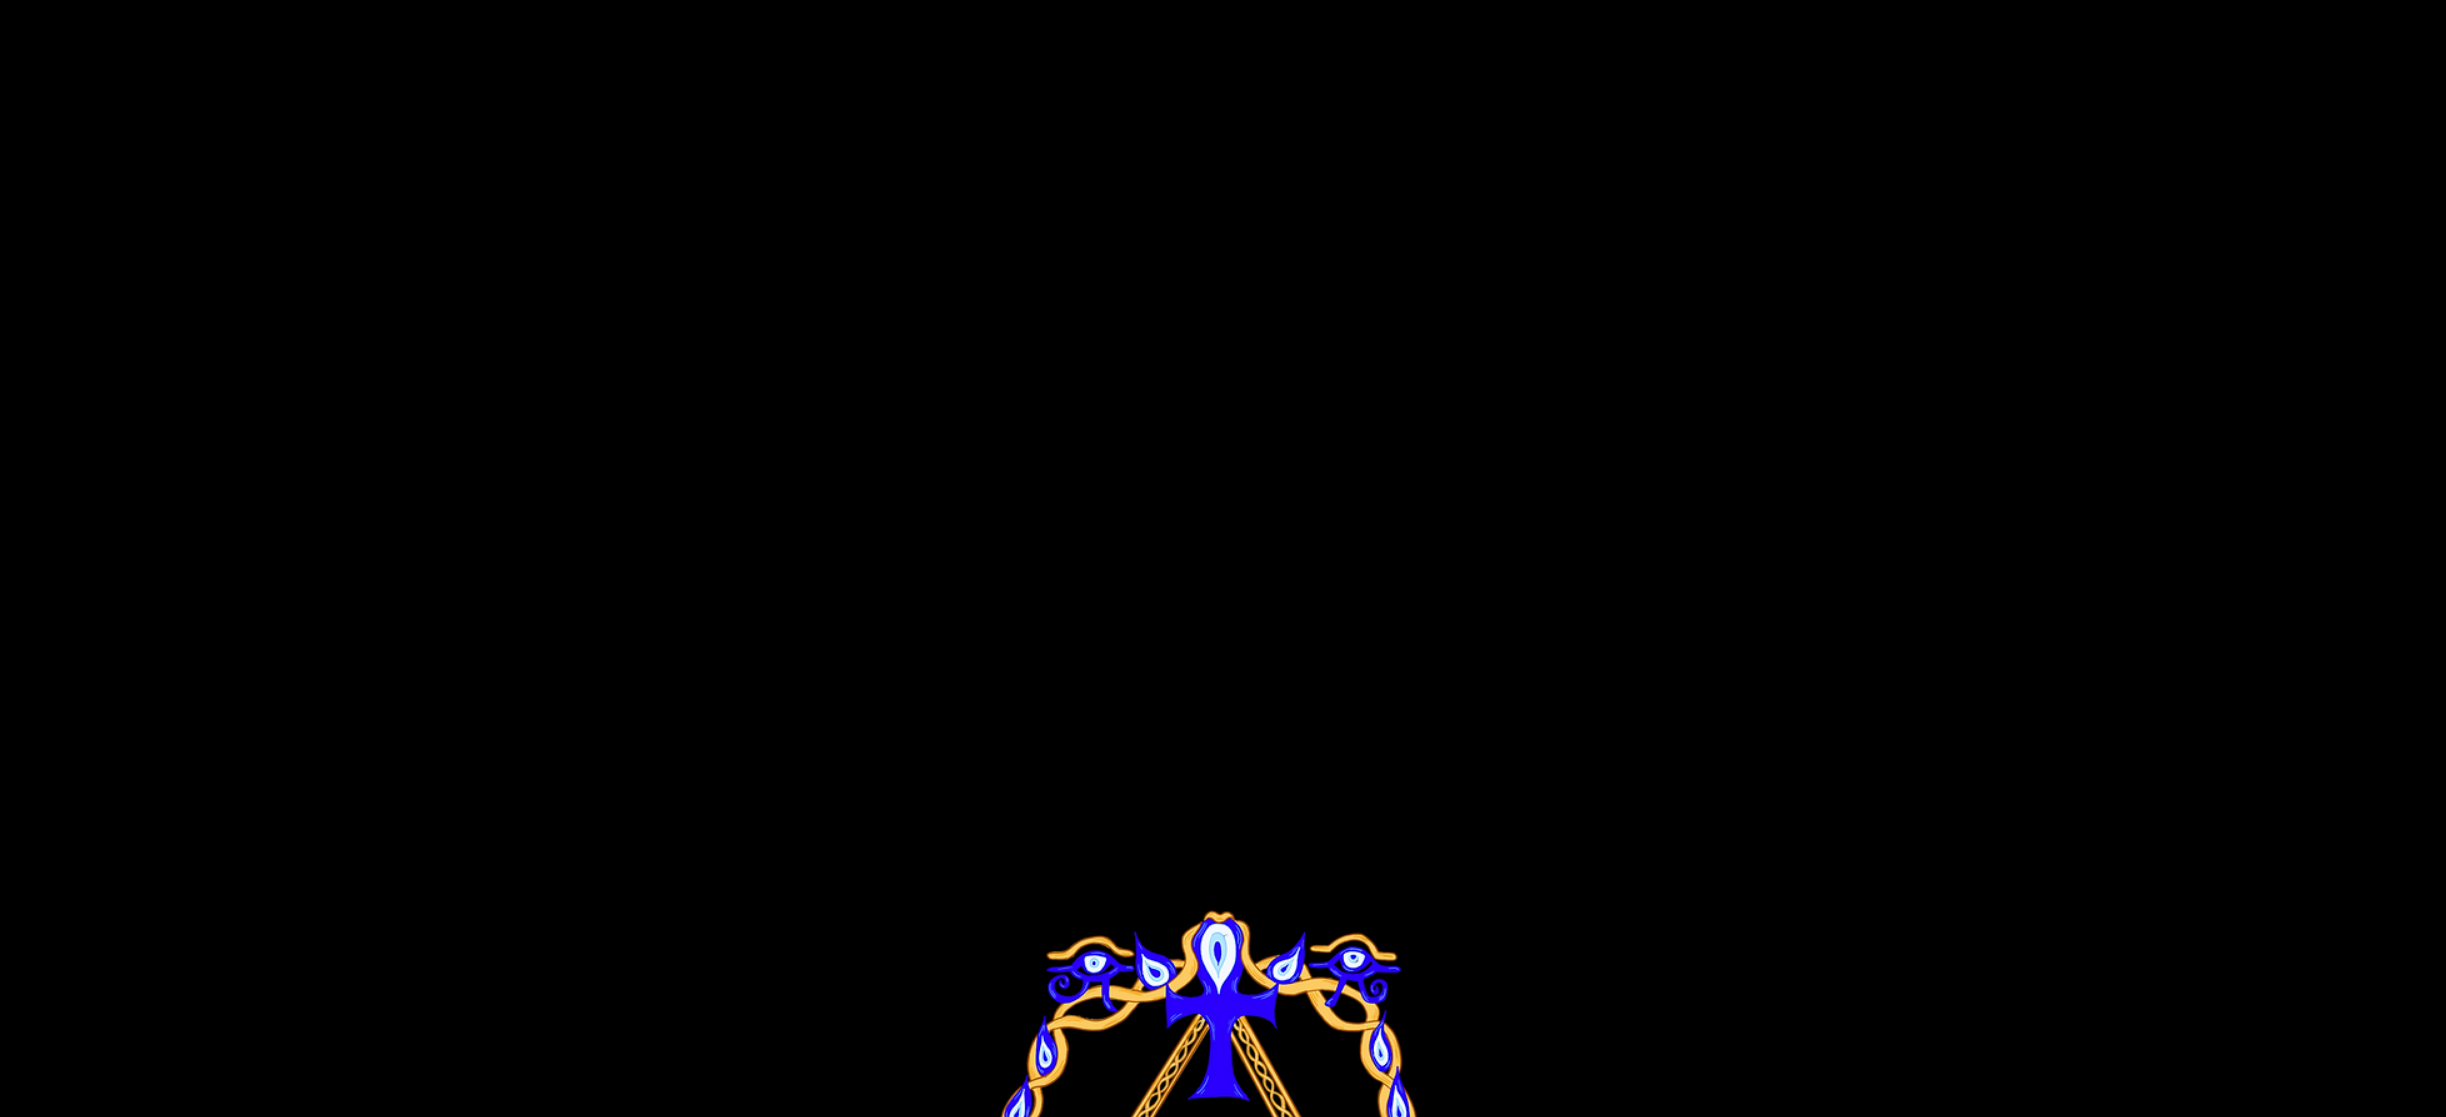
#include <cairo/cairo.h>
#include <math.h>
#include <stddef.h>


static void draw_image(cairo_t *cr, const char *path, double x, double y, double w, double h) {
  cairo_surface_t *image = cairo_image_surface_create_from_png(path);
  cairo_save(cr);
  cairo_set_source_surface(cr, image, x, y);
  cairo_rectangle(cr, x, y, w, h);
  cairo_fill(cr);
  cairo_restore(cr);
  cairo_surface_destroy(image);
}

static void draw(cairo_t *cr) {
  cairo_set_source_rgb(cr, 0, 0, 0);
  cairo_paint(cr);
  draw_image(cr, "images/1.png", 1000, 910, 418, 207);
}

int main(void) {
  cairo_surface_t *surface = cairo_image_surface_create(CAIRO_FORMAT_RGB24, 2446, 1117);
  cairo_t *cr = cairo_create(surface);
  cairo_font_options_t *options = cairo_font_options_create();
  cairo_font_options_set_hint_metrics(options, CAIRO_HINT_METRICS_OFF);
  cairo_font_options_set_hint_style(options, CAIRO_HINT_STYLE_NONE);
  cairo_set_font_options(cr, options);
  cairo_set_miter_limit(cr, 4);
  draw(cr);
  cairo_surface_write_to_png(surface, "out.png");
  cairo_font_options_destroy(options);
  cairo_destroy(cr);
  cairo_surface_destroy(surface);
  return 0;
}
